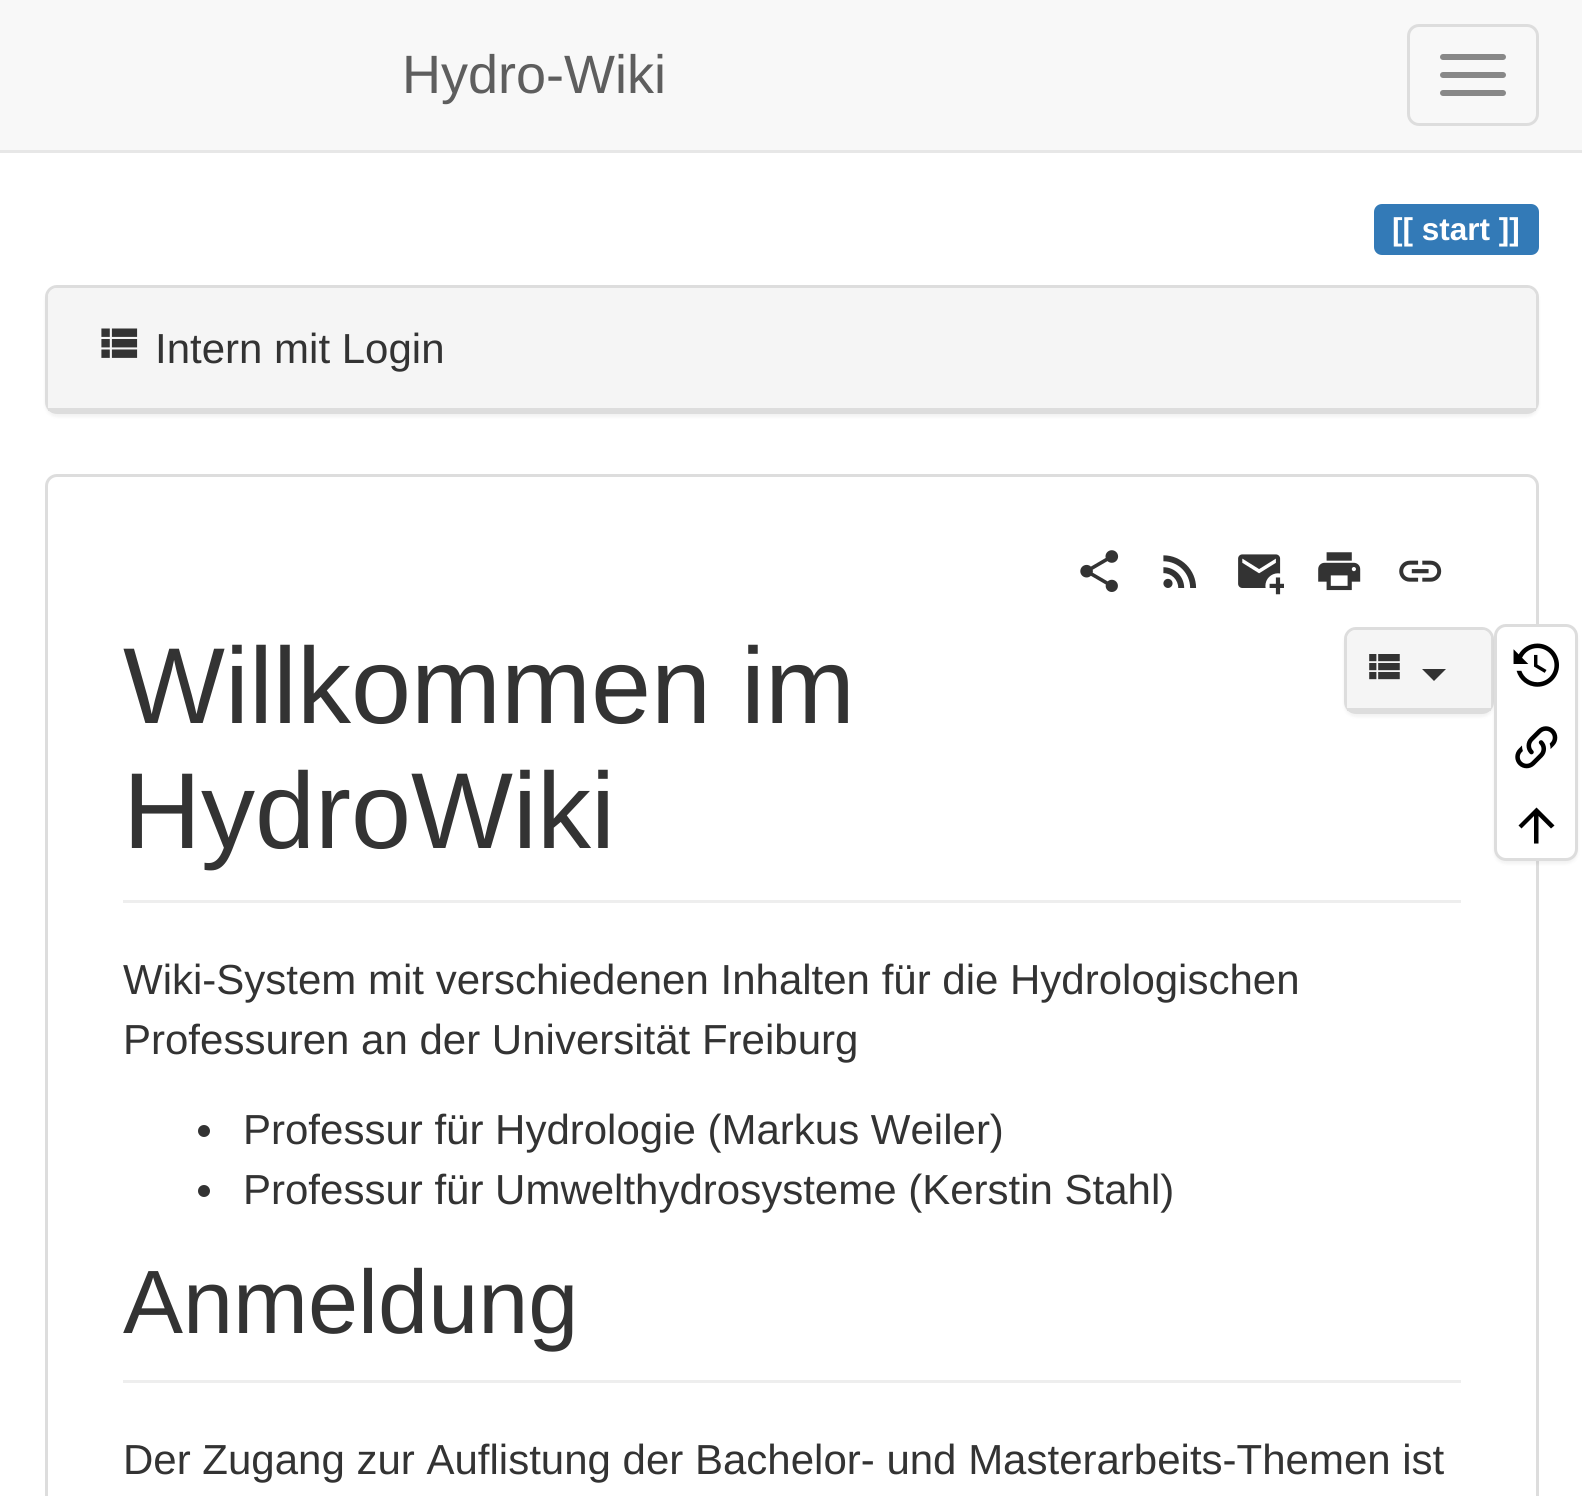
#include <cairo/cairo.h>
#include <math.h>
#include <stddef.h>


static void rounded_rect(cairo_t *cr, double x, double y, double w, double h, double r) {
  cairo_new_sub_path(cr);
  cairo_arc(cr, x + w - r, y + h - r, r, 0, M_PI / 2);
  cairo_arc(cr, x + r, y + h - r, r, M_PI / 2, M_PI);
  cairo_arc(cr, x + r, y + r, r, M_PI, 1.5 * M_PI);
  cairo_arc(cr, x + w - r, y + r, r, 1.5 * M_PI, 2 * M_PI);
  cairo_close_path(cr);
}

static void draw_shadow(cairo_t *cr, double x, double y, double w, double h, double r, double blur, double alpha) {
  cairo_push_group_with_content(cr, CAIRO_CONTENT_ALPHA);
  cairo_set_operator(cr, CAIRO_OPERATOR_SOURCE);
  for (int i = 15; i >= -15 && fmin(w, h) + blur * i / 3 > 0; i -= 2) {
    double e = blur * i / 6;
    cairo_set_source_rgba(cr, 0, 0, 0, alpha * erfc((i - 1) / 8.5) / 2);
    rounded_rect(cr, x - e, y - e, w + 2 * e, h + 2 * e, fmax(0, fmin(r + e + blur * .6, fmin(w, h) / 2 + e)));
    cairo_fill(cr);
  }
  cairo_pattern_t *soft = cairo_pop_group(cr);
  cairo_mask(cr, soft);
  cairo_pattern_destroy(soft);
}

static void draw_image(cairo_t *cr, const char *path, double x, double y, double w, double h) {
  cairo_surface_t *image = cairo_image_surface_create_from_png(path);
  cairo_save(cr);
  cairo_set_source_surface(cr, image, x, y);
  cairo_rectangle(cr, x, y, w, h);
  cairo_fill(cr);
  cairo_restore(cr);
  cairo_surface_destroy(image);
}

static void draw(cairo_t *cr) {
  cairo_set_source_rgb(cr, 1, 1, 1);
  cairo_paint(cr);
  cairo_set_source_rgb(cr, 248 / 255.0, 248 / 255.0, 248 / 255.0);
  cairo_rectangle(cr, 0, 0, 1582, 150);
  cairo_fill(cr);
  cairo_set_source_rgb(cr, 231 / 255.0, 231 / 255.0, 231 / 255.0);
  cairo_rectangle(cr, 0, 150, 1582, 3);
  cairo_fill(cr);
  rounded_rect(cr, 1408.5, 25.5, 129, 99, 10.5);
  cairo_set_source_rgb(cr, 221 / 255.0, 221 / 255.0, 221 / 255.0);
  cairo_set_line_width(cr, 3);
  cairo_stroke(cr);
  cairo_set_source_rgb(cr, 136 / 255.0, 136 / 255.0, 136 / 255.0);
  rounded_rect(cr, 1440, 54, 66, 6, 3);
  cairo_fill(cr);
  rounded_rect(cr, 1440, 72, 66, 6, 3);
  cairo_fill(cr);
  rounded_rect(cr, 1440, 90, 66, 6, 3);
  cairo_fill(cr);
  cairo_set_source_rgb(cr, 51 / 255.0, 122 / 255.0, 183 / 255.0);
  cairo_new_path(cr);
  cairo_move_to(cr, 1382, 204);
  cairo_line_to(cr, 1422, 204);
  cairo_line_to(cr, 1422, 255);
  cairo_line_to(cr, 1382, 255);
  cairo_curve_to(cr, 1377.5, 255, 1374, 251.5, 1374, 247);
  cairo_line_to(cr, 1374, 212);
  cairo_curve_to(cr, 1374, 207.5, 1377.5, 204, 1382, 204);
  cairo_close_path(cr);
  cairo_fill(cr);
  cairo_rectangle(cr, 1422, 204, 69, 51);
  cairo_fill(cr);
  cairo_new_path(cr);
  cairo_move_to(cr, 1491, 204);
  cairo_line_to(cr, 1531, 204);
  cairo_curve_to(cr, 1535.5, 204, 1539, 207.5, 1539, 212);
  cairo_line_to(cr, 1539, 247);
  cairo_curve_to(cr, 1539, 251.5, 1535.5, 255, 1531, 255);
  cairo_line_to(cr, 1491, 255);
  cairo_close_path(cr);
  cairo_fill(cr);
  cairo_set_source_rgb(cr, 0, 0, 0);
  draw_shadow(cr, 45, 288, 1494, 129, 12, 1.5, 0.05);
  rounded_rect(cr, 46.5, 286.5, 1491, 126, 10.5);
  cairo_set_source_rgb(cr, 221 / 255.0, 221 / 255.0, 221 / 255.0);
  cairo_stroke(cr);
  cairo_set_source_rgb(cr, 245 / 255.0, 245 / 255.0, 245 / 255.0);
  cairo_new_path(cr);
  cairo_move_to(cr, 57, 288);
  cairo_line_to(cr, 1527, 288);
  cairo_curve_to(cr, 1532, 288, 1536, 292, 1536, 297);
  cairo_line_to(cr, 1536, 411);
  cairo_line_to(cr, 48, 411);
  cairo_line_to(cr, 48, 297);
  cairo_curve_to(cr, 48, 292, 52, 288, 57, 288);
  cairo_close_path(cr);
  cairo_fill(cr);
  cairo_set_source_rgb(cr, 221 / 255.0, 221 / 255.0, 221 / 255.0);
  cairo_rectangle(cr, 48, 408, 1488, 3);
  cairo_fill(cr);
  draw_image(cr, "images/1.png", 101, 328, 37, 30);
  rounded_rect(cr, 46.5, 475.5, 1491, 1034, 10.5);
  cairo_stroke(cr);
  draw_image(cr, "images/2.png", 1080, 550, 39, 42);
  draw_image(cr, "images/3.png", 1163, 555, 34, 33);
  draw_image(cr, "images/4.png", 1238, 554, 46, 41);
  draw_image(cr, "images/5.png", 1318, 552, 43, 39);
  draw_image(cr, "images/6.png", 1399, 560, 43, 22);
  cairo_set_source_rgb(cr, 0, 0, 0);
  draw_shadow(cr, 1344, 630, 150, 87, 12, 1.5, 0.05);
  rounded_rect(cr, 1345.5, 628.5, 147, 84, 10.5);
  cairo_set_source_rgb(cr, 221 / 255.0, 221 / 255.0, 221 / 255.0);
  cairo_stroke(cr);
  cairo_set_source_rgb(cr, 245 / 255.0, 245 / 255.0, 245 / 255.0);
  cairo_new_path(cr);
  cairo_move_to(cr, 1356, 630);
  cairo_line_to(cr, 1482, 630);
  cairo_curve_to(cr, 1487, 630, 1491, 634, 1491, 639);
  cairo_line_to(cr, 1491, 711);
  cairo_line_to(cr, 1347, 711);
  cairo_line_to(cr, 1347, 639);
  cairo_curve_to(cr, 1347, 634, 1351, 630, 1356, 630);
  cairo_close_path(cr);
  cairo_fill(cr);
  cairo_set_source_rgb(cr, 221 / 255.0, 221 / 255.0, 221 / 255.0);
  cairo_rectangle(cr, 1347, 708, 144, 3);
  cairo_fill(cr);
  draw_image(cr, "images/7.png", 1369, 654, 31, 26);
  cairo_set_source_rgb(cr, 51 / 255.0, 51 / 255.0, 51 / 255.0);
  cairo_new_path(cr);
  cairo_move_to(cr, 1422, 669);
  cairo_line_to(cr, 1446, 669);
  cairo_line_to(cr, 1434, 681);
  cairo_close_path(cr);
  cairo_fill(cr);
  cairo_set_source_rgb(cr, 238 / 255.0, 238 / 255.0, 238 / 255.0);
  cairo_rectangle(cr, 123, 900, 1338, 3);
  cairo_fill(cr);
  cairo_set_source_rgb(cr, 51 / 255.0, 51 / 255.0, 51 / 255.0);
  cairo_arc(cr, 204, 1131, 6, 0, 2 * M_PI);
  cairo_fill(cr);
  cairo_arc(cr, 204, 1191, 6, 0, 2 * M_PI);
  cairo_fill(cr);
  cairo_set_source_rgb(cr, 238 / 255.0, 238 / 255.0, 238 / 255.0);
  cairo_rectangle(cr, 123, 1380, 1338, 3);
  cairo_fill(cr);
  cairo_set_source_rgb(cr, 0, 0, 0);
  draw_shadow(cr, 1494, 627, 84, 237, 12, 1.5, 0.05);
  cairo_set_source_rgb(cr, 1, 1, 1);
  rounded_rect(cr, 1495.5, 625.5, 81, 234, 10.5);
  cairo_fill_preserve(cr);
  cairo_set_source_rgb(cr, 221 / 255.0, 221 / 255.0, 221 / 255.0);
  cairo_stroke(cr);
  draw_image(cr, "images/8.png", 1513, 643, 46, 44);
  draw_image(cr, "images/9.png", 1515, 726, 43, 43);
  cairo_set_source_rgb(cr, 0, 0, 0);
  cairo_new_path(cr);
  cairo_move_to(cr, 1538.5, 843.5);
  cairo_line_to(cr, 1534, 843.5);
  cairo_line_to(cr, 1534, 816);
  cairo_line_to(cr, 1521.5, 828.5);
  cairo_line_to(cr, 1518.5, 825.5);
  cairo_line_to(cr, 1536.5, 807.5);
  cairo_line_to(cr, 1554.5, 825.5);
  cairo_line_to(cr, 1551, 828.5);
  cairo_line_to(cr, 1538.5, 816);
  cairo_close_path(cr);
  cairo_fill(cr);
  cairo_select_font_face(cr, "Liberation Sans", CAIRO_FONT_SLANT_NORMAL, CAIRO_FONT_WEIGHT_NORMAL);
  cairo_set_font_size(cr, 54);
  cairo_set_source_rgb(cr, 94 / 255.0, 94 / 255.0, 94 / 255.0);
  cairo_move_to(cr, 402, 93);
  cairo_show_text(cr, "Hydro-Wiki");
  cairo_select_font_face(cr, "Liberation Sans", CAIRO_FONT_SLANT_NORMAL, CAIRO_FONT_WEIGHT_BOLD);
  cairo_set_font_size(cr, 31.5);
  cairo_set_source_rgb(cr, 1, 1, 1);
  cairo_move_to(cr, 1392, 240);
  cairo_show_text(cr, "[[ start ]]");
  cairo_select_font_face(cr, "Liberation Sans", CAIRO_FONT_SLANT_NORMAL, CAIRO_FONT_WEIGHT_NORMAL);
  cairo_set_font_size(cr, 42);
  cairo_set_source_rgb(cr, 51 / 255.0, 51 / 255.0, 51 / 255.0);
  cairo_move_to(cr, 155, 363);
  cairo_show_text(cr, "Intern mit Login");
  cairo_set_font_size(cr, 108);
  cairo_move_to(cr, 123, 723);
  cairo_show_text(cr, "Willkommen im");
  cairo_move_to(cr, 123, 848);
  cairo_show_text(cr, "HydroWiki");
  cairo_set_font_size(cr, 42);
  cairo_move_to(cr, 123, 994);
  cairo_show_text(cr, "Wiki-System mit verschiedenen Inhalten für die Hydrologischen");
  cairo_move_to(cr, 123, 1054);
  cairo_show_text(cr, "Professuren an der Universität Freiburg");
  cairo_move_to(cr, 243, 1144);
  cairo_show_text(cr, "Professur für Hydrologie (Markus Weiler)");
  cairo_move_to(cr, 243, 1204);
  cairo_show_text(cr, "Professur für Umwelthydrosysteme (Kerstin Stahl)");
  cairo_set_font_size(cr, 90);
  cairo_move_to(cr, 123, 1333);
  cairo_show_text(cr, "Anmeldung");
  cairo_set_font_size(cr, 42);
  cairo_move_to(cr, 123, 1474);
  cairo_show_text(cr, "Der Zugang zur Auflistung der Bachelor- und Masterarbeits-Themen ist");
}

int main(void) {
  cairo_surface_t *surface = cairo_image_surface_create(CAIRO_FORMAT_RGB24, 1582, 1496);
  cairo_t *cr = cairo_create(surface);
  cairo_font_options_t *options = cairo_font_options_create();
  cairo_font_options_set_hint_metrics(options, CAIRO_HINT_METRICS_OFF);
  cairo_font_options_set_hint_style(options, CAIRO_HINT_STYLE_NONE);
  cairo_set_font_options(cr, options);
  cairo_set_miter_limit(cr, 4);
  draw(cr);
  cairo_surface_write_to_png(surface, "out.png");
  cairo_font_options_destroy(options);
  cairo_destroy(cr);
  cairo_surface_destroy(surface);
  return 0;
}
